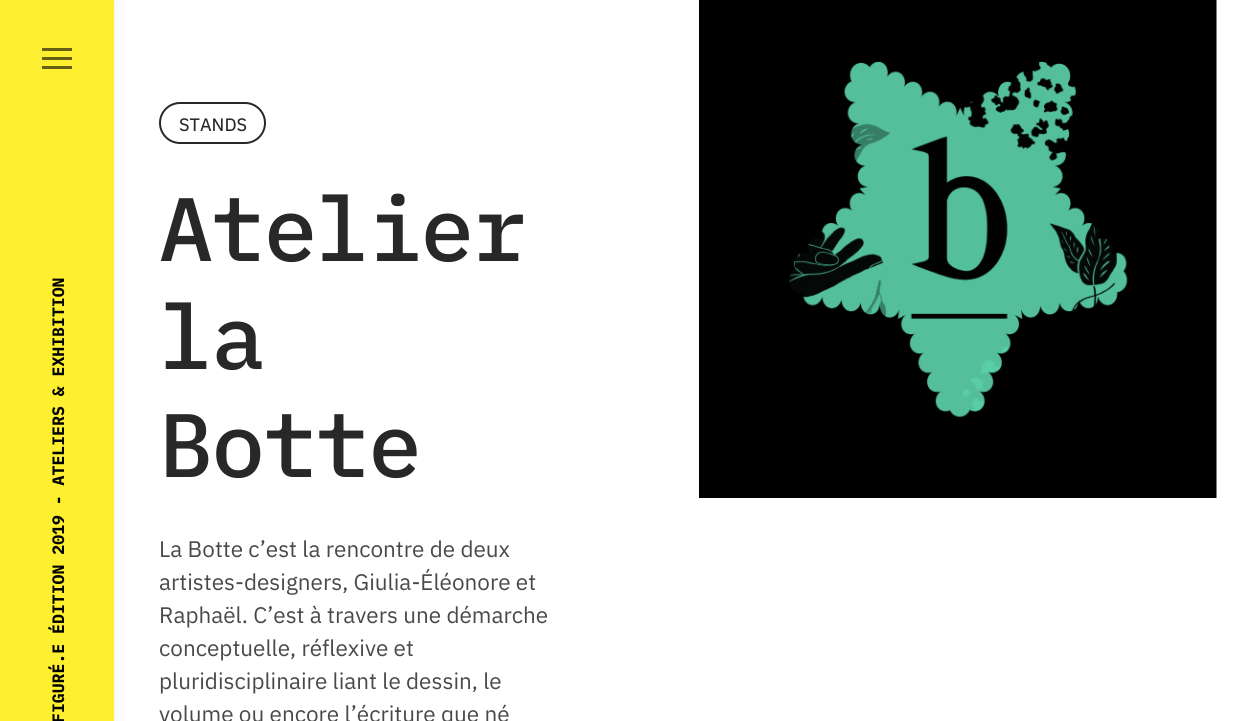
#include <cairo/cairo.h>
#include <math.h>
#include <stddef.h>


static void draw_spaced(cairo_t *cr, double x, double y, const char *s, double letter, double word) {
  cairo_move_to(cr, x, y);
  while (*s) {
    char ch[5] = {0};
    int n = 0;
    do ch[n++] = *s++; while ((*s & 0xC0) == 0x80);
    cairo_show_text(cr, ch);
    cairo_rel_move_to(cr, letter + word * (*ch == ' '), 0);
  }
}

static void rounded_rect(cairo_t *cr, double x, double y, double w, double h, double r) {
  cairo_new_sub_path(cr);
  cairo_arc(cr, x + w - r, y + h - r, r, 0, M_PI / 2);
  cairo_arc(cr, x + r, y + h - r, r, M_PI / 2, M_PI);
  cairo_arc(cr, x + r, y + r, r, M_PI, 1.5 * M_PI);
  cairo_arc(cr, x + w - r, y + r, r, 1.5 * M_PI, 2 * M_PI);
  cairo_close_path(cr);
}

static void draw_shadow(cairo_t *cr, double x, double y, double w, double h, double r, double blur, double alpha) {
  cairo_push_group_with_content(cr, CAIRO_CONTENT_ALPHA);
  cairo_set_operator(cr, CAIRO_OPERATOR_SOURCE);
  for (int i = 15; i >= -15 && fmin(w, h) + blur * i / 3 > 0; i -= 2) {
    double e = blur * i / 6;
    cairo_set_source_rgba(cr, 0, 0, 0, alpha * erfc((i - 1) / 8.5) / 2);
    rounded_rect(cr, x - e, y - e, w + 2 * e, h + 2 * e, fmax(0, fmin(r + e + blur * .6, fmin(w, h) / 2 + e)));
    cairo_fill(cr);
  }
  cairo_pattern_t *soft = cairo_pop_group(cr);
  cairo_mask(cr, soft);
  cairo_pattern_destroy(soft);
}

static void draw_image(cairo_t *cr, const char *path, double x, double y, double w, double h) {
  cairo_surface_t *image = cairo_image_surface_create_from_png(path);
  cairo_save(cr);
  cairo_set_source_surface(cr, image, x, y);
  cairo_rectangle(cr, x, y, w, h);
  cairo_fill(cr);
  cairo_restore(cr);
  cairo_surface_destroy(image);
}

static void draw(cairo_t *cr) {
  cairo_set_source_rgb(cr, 1, 1, 1);
  cairo_paint(cr);
  cairo_set_source_rgb(cr, 0, 0, 0);
  draw_shadow(cr, 0, 2, 114, 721, 0, 9, 0.06);
  cairo_set_source_rgb(cr, 254 / 255.0, 239 / 255.0, 48 / 255.0);
  cairo_rectangle(cr, 0, 0, 114, 721);
  cairo_fill(cr);
  cairo_set_source_rgb(cr, 102 / 255.0, 96 / 255.0, 19 / 255.0);
  cairo_rectangle(cr, 42, 48, 30, 3);
  cairo_fill(cr);
  cairo_rectangle(cr, 42, 66, 30, 3);
  cairo_fill(cr);
  cairo_rectangle(cr, 42, 57, 30, 3);
  cairo_fill(cr);
  rounded_rect(cr, 160, 103, 105, 40, 20);
  cairo_set_source_rgb(cr, 40 / 255.0, 40 / 255.0, 40 / 255.0);
  cairo_stroke(cr);
  draw_image(cr, "images/1.png", 699, 0, 518, 498);
  cairo_select_font_face(cr, "IBM Plex Mono", CAIRO_FONT_SLANT_NORMAL, CAIRO_FONT_WEIGHT_BOLD);
  cairo_set_font_size(cr, 16.5);
  cairo_set_source_rgb(cr, 0, 0, 0);
  cairo_save(cr);
  cairo_translate(cr, 64, 723);
  cairo_rotate(cr, -90 * M_PI / 180);
  cairo_move_to(cr, 0, 0);
  cairo_show_text(cr, "FIGURÉ.E ÉDITION 2019 - ATELIERS & EXHIBITION");
  cairo_restore(cr);
  cairo_select_font_face(cr, "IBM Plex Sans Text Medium", CAIRO_FONT_SLANT_NORMAL, CAIRO_FONT_WEIGHT_NORMAL);
  cairo_set_font_size(cr, 18);
  cairo_set_source_rgb(cr, 40 / 255.0, 40 / 255.0, 40 / 255.0);
  cairo_move_to(cr, 179, 131);
  cairo_show_text(cr, "STANDS");
  cairo_select_font_face(cr, "IBM Plex Mono Medium", CAIRO_FONT_SLANT_NORMAL, CAIRO_FONT_WEIGHT_NORMAL);
  cairo_set_font_size(cr, 90);
  draw_spaced(cr, 159, 261, "Atelier", -1.75, 0);
  draw_spaced(cr, 159, 369, "la", -1.75, 0);
  draw_spaced(cr, 159, 477, "Botte", -1.75, 0);
  cairo_select_font_face(cr, "IBM Plex Sans", CAIRO_FONT_SLANT_NORMAL, CAIRO_FONT_WEIGHT_NORMAL);
  cairo_set_font_size(cr, 22.5);
  cairo_set_source_rgb(cr, 73 / 255.0, 73 / 255.0, 73 / 255.0);
  cairo_move_to(cr, 159, 557);
  cairo_show_text(cr, "La Botte c’est la rencontre de deux");
  cairo_move_to(cr, 159, 590);
  cairo_show_text(cr, "artistes-designers, Giulia-Éléonore et");
  cairo_move_to(cr, 159, 623);
  cairo_show_text(cr, "Raphaël. C’est à travers une démarche");
  cairo_move_to(cr, 159, 656);
  cairo_show_text(cr, "conceptuelle, réflexive et");
  cairo_move_to(cr, 159, 689);
  cairo_show_text(cr, "pluridisciplinaire liant le dessin, le");
  cairo_move_to(cr, 159, 722);
  cairo_show_text(cr, "volume ou encore l’écriture que né");
}

int main(void) {
  cairo_surface_t *surface = cairo_image_surface_create(CAIRO_FORMAT_RGB24, 1239, 721);
  cairo_t *cr = cairo_create(surface);
  cairo_font_options_t *options = cairo_font_options_create();
  cairo_font_options_set_hint_metrics(options, CAIRO_HINT_METRICS_OFF);
  cairo_font_options_set_hint_style(options, CAIRO_HINT_STYLE_NONE);
  cairo_set_font_options(cr, options);
  cairo_set_miter_limit(cr, 4);
  draw(cr);
  cairo_surface_write_to_png(surface, "out.png");
  cairo_font_options_destroy(options);
  cairo_destroy(cr);
  cairo_surface_destroy(surface);
  return 0;
}
